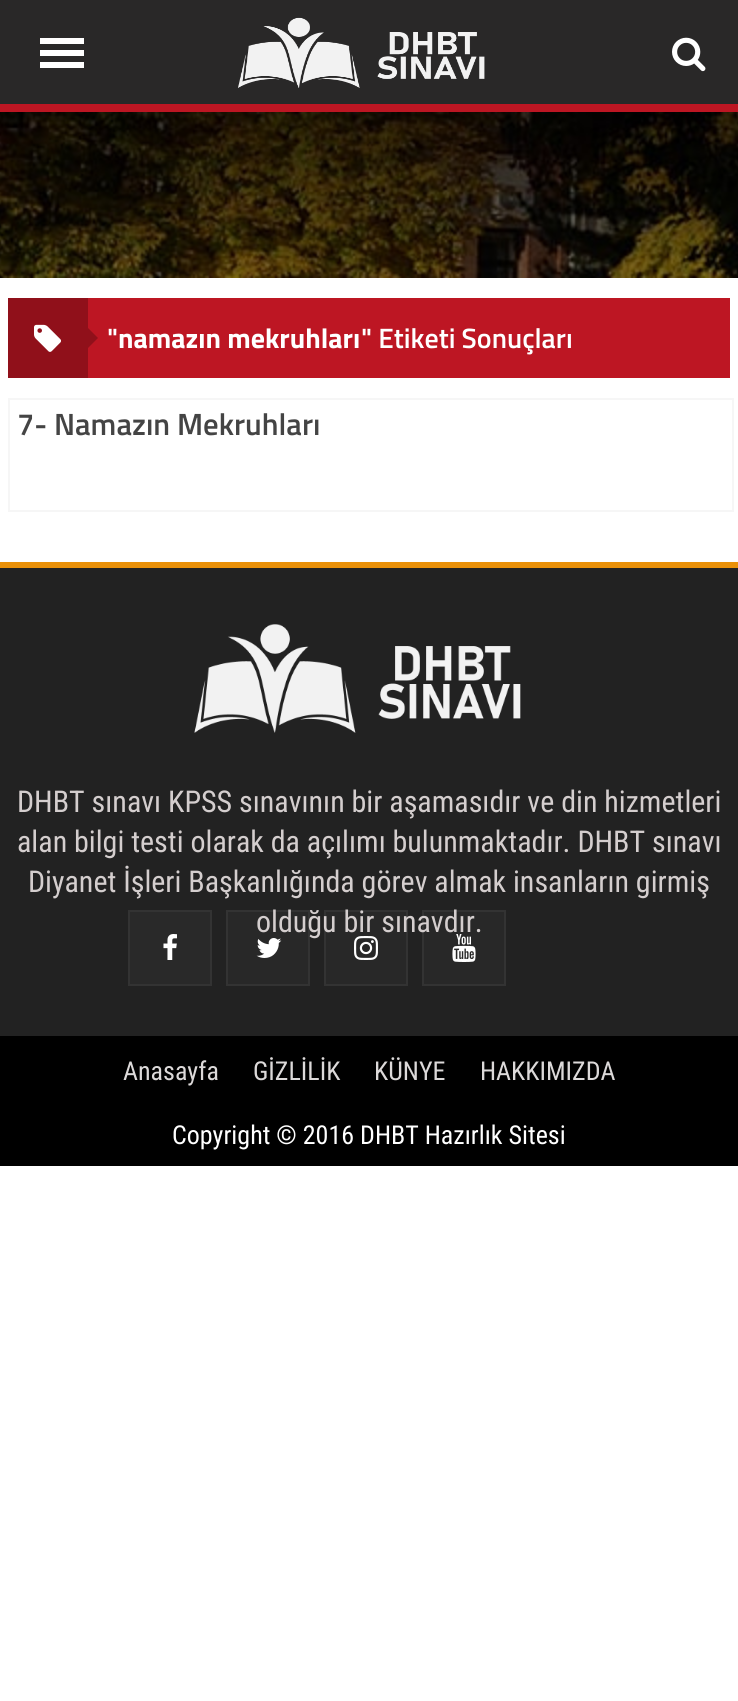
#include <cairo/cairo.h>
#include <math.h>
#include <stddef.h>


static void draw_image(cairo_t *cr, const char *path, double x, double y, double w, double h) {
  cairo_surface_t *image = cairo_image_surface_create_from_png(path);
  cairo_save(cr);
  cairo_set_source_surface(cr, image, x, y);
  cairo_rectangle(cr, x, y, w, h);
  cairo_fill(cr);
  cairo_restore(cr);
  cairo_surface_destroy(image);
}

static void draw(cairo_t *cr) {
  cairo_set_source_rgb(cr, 1, 1, 1);
  cairo_paint(cr);
  cairo_set_source_rgb(cr, 41 / 255.0, 40 / 255.0, 40 / 255.0);
  cairo_rectangle(cr, 0, 0, 738, 104);
  cairo_fill(cr);
  cairo_set_source_rgb(cr, 189 / 255.0, 22 / 255.0, 35 / 255.0);
  cairo_rectangle(cr, 0, 104, 738, 8);
  cairo_fill(cr);
  cairo_set_source_rgb(cr, 1, 1, 1);
  cairo_rectangle(cr, 40, 38, 44, 6);
  cairo_fill(cr);
  cairo_rectangle(cr, 40, 50, 44, 6);
  cairo_fill(cr);
  cairo_rectangle(cr, 40, 62, 44, 6);
  cairo_fill(cr);
  draw_image(cr, "images/1.png", 672, 37, 34, 35);
  draw_image(cr, "images/2.png", 0, 112, 738, 166);
  draw_image(cr, "images/3.png", 238, 17, 247, 71);
  cairo_set_source_rgb(cr, 189 / 255.0, 22 / 255.0, 35 / 255.0);
  cairo_rectangle(cr, 88, 298, 642, 80);
  cairo_fill(cr);
  cairo_set_source_rgb(cr, 144 / 255.0, 16 / 255.0, 26 / 255.0);
  cairo_rectangle(cr, 8, 298, 80, 80);
  cairo_fill(cr);
  draw_image(cr, "images/4.png", 34, 324, 27, 28);
  cairo_new_path(cr);
  cairo_move_to(cr, 88, 348);
  cairo_line_to(cr, 88, 328);
  cairo_line_to(cr, 98, 338);
  cairo_close_path(cr);
  cairo_fill(cr);
  cairo_rectangle(cr, 9, 399, 724, 112);
  cairo_set_source_rgb(cr, 246 / 255.0, 246 / 255.0, 246 / 255.0);
  cairo_stroke(cr);
  cairo_set_source_rgb(cr, 34 / 255.0, 34 / 255.0, 34 / 255.0);
  cairo_rectangle(cr, 0, 568, 738, 468);
  cairo_fill(cr);
  cairo_set_source_rgb(cr, 234 / 255.0, 145 / 255.0, 9 / 255.0);
  cairo_rectangle(cr, 0, 562, 738, 6);
  cairo_fill(cr);
  draw_image(cr, "images/5.png", 194, 624, 327, 109);
  cairo_set_source_rgb(cr, 41 / 255.0, 41 / 255.0, 41 / 255.0);
  cairo_rectangle(cr, 129, 911, 82, 74);
  cairo_fill_preserve(cr);
  cairo_set_source_rgb(cr, 51 / 255.0, 51 / 255.0, 51 / 255.0);
  cairo_stroke(cr);
  draw_image(cr, "images/6.png", 163, 934, 14, 26);
  cairo_set_source_rgba(cr, 1, 1, 1, 0.03);
  cairo_rectangle(cr, 227, 911, 82, 74);
  cairo_fill_preserve(cr);
  cairo_set_source_rgb(cr, 51 / 255.0, 51 / 255.0, 51 / 255.0);
  cairo_stroke(cr);
  cairo_set_source_rgba(cr, 1, 1, 1, 0.03);
  cairo_rectangle(cr, 325, 911, 82, 74);
  cairo_fill_preserve(cr);
  cairo_set_source_rgb(cr, 51 / 255.0, 51 / 255.0, 51 / 255.0);
  cairo_stroke(cr);
  cairo_set_source_rgba(cr, 1, 1, 1, 0.03);
  cairo_rectangle(cr, 423, 911, 82, 74);
  cairo_fill_preserve(cr);
  cairo_set_source_rgb(cr, 51 / 255.0, 51 / 255.0, 51 / 255.0);
  cairo_stroke(cr);
  cairo_set_source_rgb(cr, 0, 0, 0);
  cairo_rectangle(cr, 0, 1036, 738, 130);
  cairo_fill(cr);
  cairo_select_font_face(cr, "Titillium Web SemiBold", CAIRO_FONT_SLANT_NORMAL, CAIRO_FONT_WEIGHT_NORMAL);
  cairo_set_font_size(cr, 28);
  cairo_set_source_rgb(cr, 1, 1, 1);
  cairo_move_to(cr, 107, 348);
  cairo_show_text(cr, "\"");
  cairo_select_font_face(cr, "Titillium Web", CAIRO_FONT_SLANT_NORMAL, CAIRO_FONT_WEIGHT_BOLD);
  cairo_move_to(cr, 118, 348);
  cairo_show_text(cr, "namazın mekruhları");
  cairo_select_font_face(cr, "Titillium Web SemiBold", CAIRO_FONT_SLANT_NORMAL, CAIRO_FONT_WEIGHT_NORMAL);
  cairo_move_to(cr, 361, 348);
  cairo_show_text(cr, "\" Etiketi Sonuçları");
  cairo_set_font_size(cr, 30.75);
  cairo_set_source_rgb(cr, 68 / 255.0, 68 / 255.0, 68 / 255.0);
  cairo_move_to(cr, 17, 435);
  cairo_show_text(cr, "7- Namazın Mekruhları");
  cairo_select_font_face(cr, "Roboto Condensed", CAIRO_FONT_SLANT_NORMAL, CAIRO_FONT_WEIGHT_NORMAL);
  cairo_set_font_size(cr, 30);
  cairo_set_source_rgb(cr, 212 / 255.0, 206 / 255.0, 206 / 255.0);
  cairo_move_to(cr, 17, 812);
  cairo_show_text(cr, "DHBT sınavı KPSS sınavının bir aşamasıdır ve din hizmetleri");
  cairo_move_to(cr, 17, 852);
  cairo_show_text(cr, "alan bilgi testi olarak da açılımı bulunmaktadır. DHBT sınavı");
  cairo_move_to(cr, 28, 892);
  cairo_show_text(cr, "Diyanet İşleri Başkanlığında görev almak insanların girmiş");
  cairo_move_to(cr, 256, 932);
  cairo_show_text(cr, "olduğu bir sınavdır.");
  draw_image(cr, "images/7.png", 256, 938, 26, 20);
  draw_image(cr, "images/8.png", 354, 936, 24, 24);
  draw_image(cr, "images/9.png", 452, 934, 24, 28);
  cairo_set_font_size(cr, 26);
  cairo_set_source_rgb(cr, 220 / 255.0, 217 / 255.0, 217 / 255.0);
  cairo_move_to(cr, 123, 1080);
  cairo_show_text(cr, "Anasayfa");
  cairo_move_to(cr, 253, 1080);
  cairo_show_text(cr, "GİZLİLİK");
  cairo_move_to(cr, 374, 1080);
  cairo_show_text(cr, "KÜNYE");
  cairo_move_to(cr, 480, 1080);
  cairo_show_text(cr, "HAKKIMIZDA");
  cairo_set_source_rgb(cr, 1, 1, 1);
  cairo_move_to(cr, 172, 1144);
  cairo_show_text(cr, "Copyright © 2016 DHBT Hazırlık Sitesi");
}

int main(void) {
  cairo_surface_t *surface = cairo_image_surface_create(CAIRO_FORMAT_RGB24, 738, 1701);
  cairo_t *cr = cairo_create(surface);
  cairo_font_options_t *options = cairo_font_options_create();
  cairo_font_options_set_hint_metrics(options, CAIRO_HINT_METRICS_OFF);
  cairo_font_options_set_hint_style(options, CAIRO_HINT_STYLE_NONE);
  cairo_set_font_options(cr, options);
  cairo_set_miter_limit(cr, 4);
  draw(cr);
  cairo_surface_write_to_png(surface, "out.png");
  cairo_font_options_destroy(options);
  cairo_destroy(cr);
  cairo_surface_destroy(surface);
  return 0;
}
